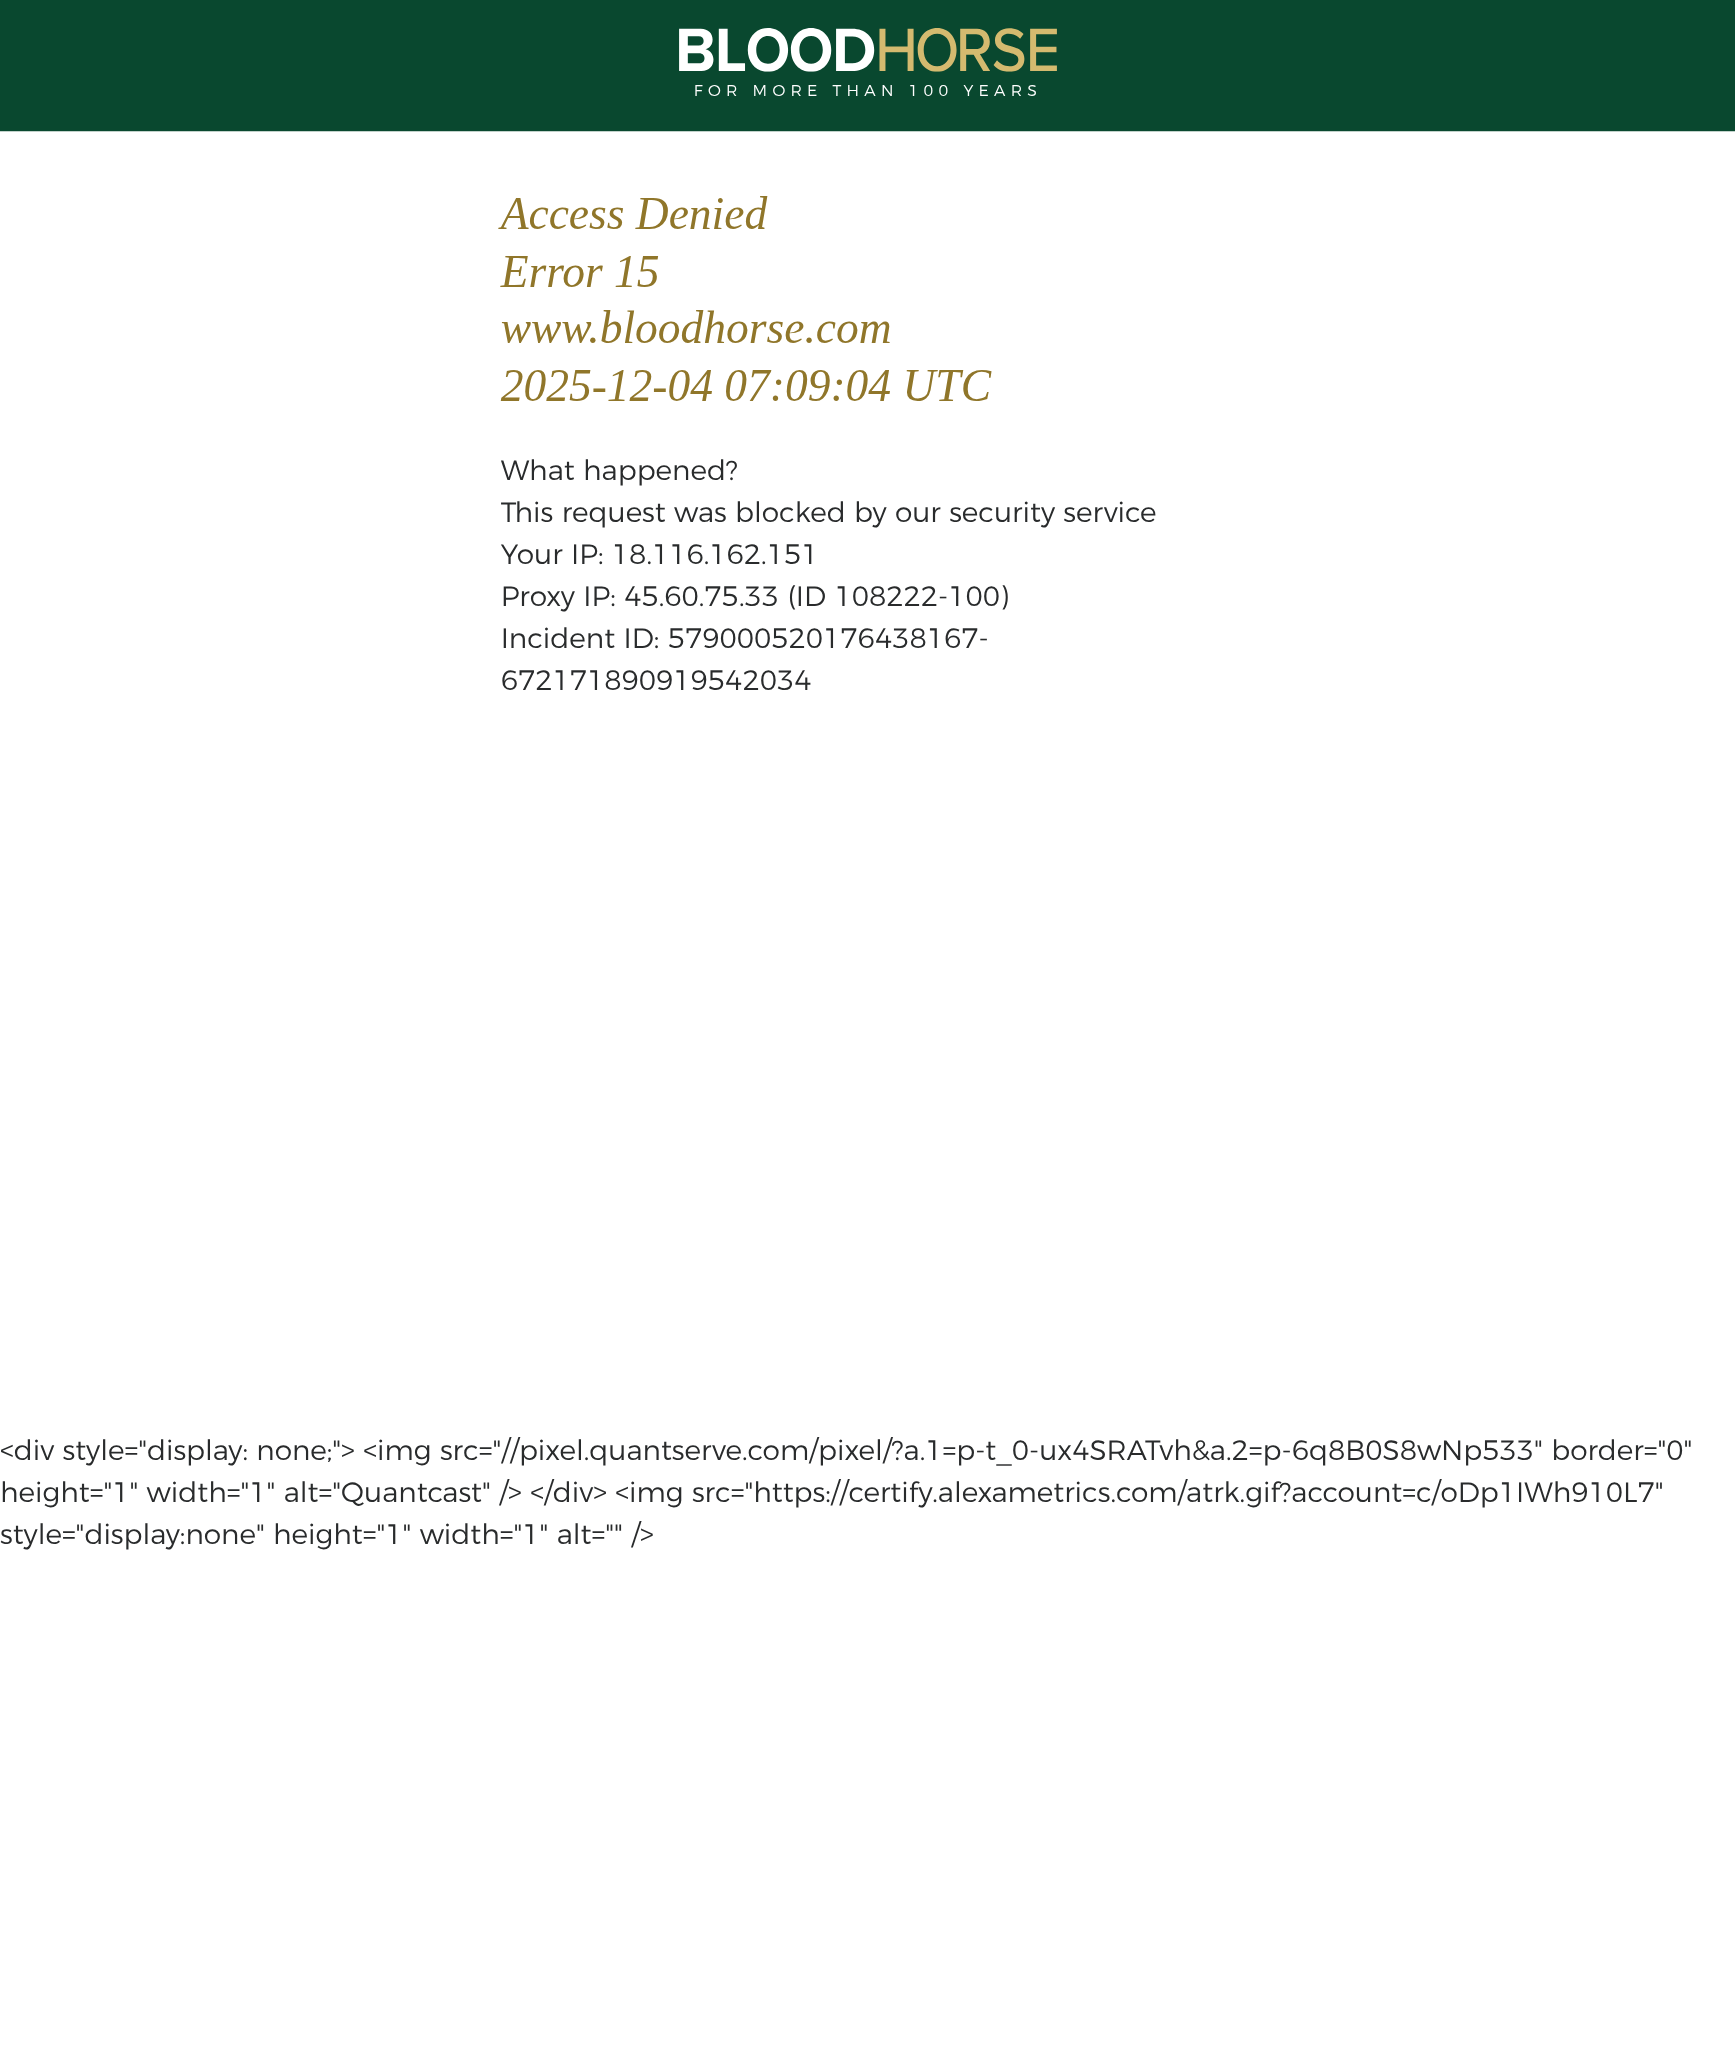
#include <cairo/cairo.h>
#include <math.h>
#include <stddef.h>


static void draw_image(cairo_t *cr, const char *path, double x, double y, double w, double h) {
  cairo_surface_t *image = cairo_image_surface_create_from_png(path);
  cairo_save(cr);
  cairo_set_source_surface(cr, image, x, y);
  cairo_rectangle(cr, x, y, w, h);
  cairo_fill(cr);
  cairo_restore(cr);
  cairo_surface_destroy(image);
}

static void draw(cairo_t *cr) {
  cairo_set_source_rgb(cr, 1, 1, 1);
  cairo_paint(cr);
  draw_image(cr, "images/1.png", 0, 0, 1735, 1550);
}

int main(void) {
  cairo_surface_t *surface = cairo_image_surface_create(CAIRO_FORMAT_RGB24, 1735, 2049);
  cairo_t *cr = cairo_create(surface);
  cairo_font_options_t *options = cairo_font_options_create();
  cairo_font_options_set_hint_metrics(options, CAIRO_HINT_METRICS_OFF);
  cairo_font_options_set_hint_style(options, CAIRO_HINT_STYLE_NONE);
  cairo_set_font_options(cr, options);
  cairo_set_miter_limit(cr, 4);
  draw(cr);
  cairo_surface_write_to_png(surface, "out.png");
  cairo_font_options_destroy(options);
  cairo_destroy(cr);
  cairo_surface_destroy(surface);
  return 0;
}
